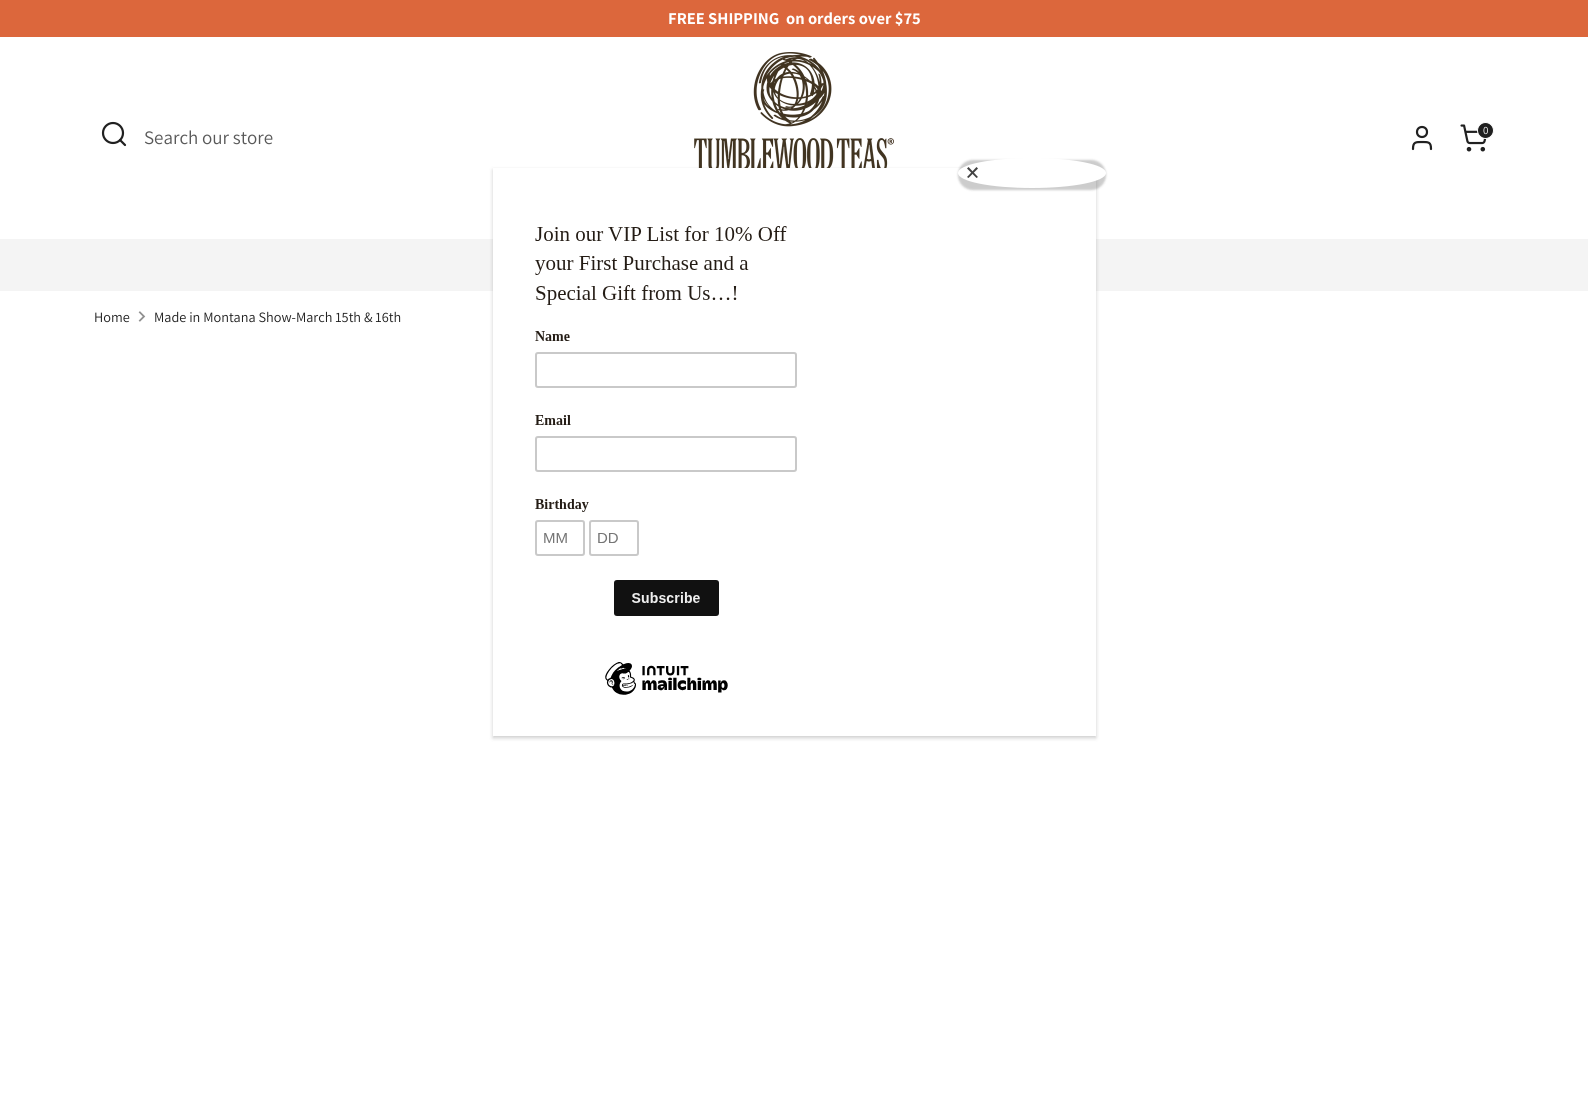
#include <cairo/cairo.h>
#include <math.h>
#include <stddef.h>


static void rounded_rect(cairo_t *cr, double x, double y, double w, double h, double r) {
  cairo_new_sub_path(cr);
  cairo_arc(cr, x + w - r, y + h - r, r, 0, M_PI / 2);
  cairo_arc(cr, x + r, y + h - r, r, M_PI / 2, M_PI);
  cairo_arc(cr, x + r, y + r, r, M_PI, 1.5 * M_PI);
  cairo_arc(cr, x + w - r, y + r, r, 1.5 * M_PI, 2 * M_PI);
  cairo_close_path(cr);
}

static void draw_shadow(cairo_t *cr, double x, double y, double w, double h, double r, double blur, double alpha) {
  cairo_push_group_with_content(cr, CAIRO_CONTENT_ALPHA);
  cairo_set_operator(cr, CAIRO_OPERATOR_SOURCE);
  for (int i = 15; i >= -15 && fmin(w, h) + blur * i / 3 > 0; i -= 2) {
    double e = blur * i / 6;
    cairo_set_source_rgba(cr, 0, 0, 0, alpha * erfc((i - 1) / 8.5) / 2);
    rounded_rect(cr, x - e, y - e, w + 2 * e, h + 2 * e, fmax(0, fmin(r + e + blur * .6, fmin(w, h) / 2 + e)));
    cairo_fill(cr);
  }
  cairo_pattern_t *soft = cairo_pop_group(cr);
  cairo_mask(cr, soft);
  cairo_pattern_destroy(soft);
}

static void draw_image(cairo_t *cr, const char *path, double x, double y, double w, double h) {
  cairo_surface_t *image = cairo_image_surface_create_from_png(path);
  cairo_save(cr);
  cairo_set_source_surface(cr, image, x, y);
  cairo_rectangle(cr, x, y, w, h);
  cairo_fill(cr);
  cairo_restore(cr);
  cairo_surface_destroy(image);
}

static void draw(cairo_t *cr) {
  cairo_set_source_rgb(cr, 1, 1, 1);
  cairo_paint(cr);
  cairo_set_source_rgb(cr, 220 / 255.0, 103 / 255.0, 60 / 255.0);
  cairo_rectangle(cr, 0, 0, 1588, 37);
  cairo_fill(cr);
  cairo_arc(cr, 113, 133, 10, 0, 2 * M_PI);
  cairo_set_source_rgb(cr, 32 / 255.0, 32 / 255.0, 32 / 255.0);
  cairo_set_line_width(cr, 2.2);
  cairo_stroke(cr);
  cairo_new_path(cr);
  cairo_move_to(cr, 125, 145);
  cairo_line_to(cr, 120, 140);
  cairo_set_line_cap(cr, CAIRO_LINE_CAP_ROUND);
  cairo_set_line_join(cr, CAIRO_LINE_JOIN_ROUND);
  cairo_stroke(cr);
  draw_image(cr, "images/1.png", 694, 52, 200, 116);
  cairo_new_path(cr);
  cairo_move_to(cr, 1431, 149);
  cairo_curve_to(cr, 1431, 142, 1428.5, 142, 1422, 142);
  cairo_curve_to(cr, 1415.5, 142, 1413, 142, 1413, 149);
  cairo_stroke(cr);
  cairo_arc(cr, 1422, 132, 5, 0, 2 * M_PI);
  cairo_set_line_cap(cr, CAIRO_LINE_CAP_BUTT);
  cairo_set_line_join(cr, CAIRO_LINE_JOIN_MITER);
  cairo_stroke(cr);
  draw_image(cr, "images/2.png", 1460, 124, 27, 28);
  cairo_arc(cr, 1485.5, 130.5, 8, 0, 2 * M_PI);
  cairo_fill_preserve(cr);
  cairo_set_source_rgb(cr, 1, 1, 1);
  cairo_set_line_width(cr, 1);
  cairo_stroke(cr);
  cairo_set_source_rgb(cr, 244 / 255.0, 244 / 255.0, 244 / 255.0);
  cairo_rectangle(cr, 0, 239, 1588, 52);
  cairo_fill(cr);
  draw_image(cr, "images/3.png", 138, 311, 8, 11);
  cairo_save(cr);
  cairo_set_fill_rule(cr, CAIRO_FILL_RULE_EVEN_ODD);
  cairo_new_path(cr);
  cairo_move_to(cr, 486, 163);
  cairo_line_to(cr, 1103, 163);
  cairo_line_to(cr, 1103, 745);
  cairo_line_to(cr, 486, 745);
  cairo_close_path(cr);
  cairo_move_to(cr, 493, 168);
  cairo_line_to(cr, 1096, 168);
  cairo_line_to(cr, 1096, 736);
  cairo_line_to(cr, 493, 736);
  cairo_close_path(cr);
  cairo_clip(cr);
  cairo_set_source_rgb(cr, 0, 0, 0);
  draw_shadow(cr, 493, 170, 603, 568, 0, 2, 0.2);
  cairo_restore(cr);
  draw_image(cr, "images/4.png", 493, 168, 603, 527);
  cairo_set_source_rgb(cr, 0, 0, 0);
  draw_shadow(cr, 958, 160, 148, 30, 15, 1, 0.2);
  cairo_set_source_rgb(cr, 1, 1, 1);
  cairo_new_path(cr);
  cairo_move_to(cr, 1032, 158);
  cairo_curve_to(cr, 1073, 158, 1106, 164.5, 1106, 173);
  cairo_curve_to(cr, 1106, 181.5, 1073, 188, 1032, 188);
  cairo_curve_to(cr, 991, 188, 958, 181.5, 958, 173);
  cairo_curve_to(cr, 958, 164.5, 991, 158, 1032, 158);
  cairo_close_path(cr);
  cairo_fill(cr);
  cairo_set_source_rgb(cr, 65 / 255.0, 65 / 255.0, 65 / 255.0);
  cairo_new_path(cr);
  cairo_move_to(cr, 976.5, 167);
  cairo_line_to(cr, 978, 168.5);
  cairo_line_to(cr, 968.5, 178);
  cairo_line_to(cr, 967, 177);
  cairo_close_path(cr);
  cairo_fill(cr);
  cairo_new_path(cr);
  cairo_move_to(cr, 967, 168.5);
  cairo_line_to(cr, 968.5, 167);
  cairo_line_to(cr, 978, 177);
  cairo_line_to(cr, 976.5, 178);
  cairo_close_path(cr);
  cairo_fill(cr);
  cairo_select_font_face(cr, "Assistant", CAIRO_FONT_SLANT_NORMAL, CAIRO_FONT_WEIGHT_BOLD);
  cairo_set_font_size(cr, 16.6);
  cairo_set_source_rgb(cr, 1, 1, 1);
  cairo_move_to(cr, 668, 24);
  cairo_show_text(cr, "FREE SHIPPING  on orders over $75");
  cairo_select_font_face(cr, "Assistant", CAIRO_FONT_SLANT_NORMAL, CAIRO_FONT_WEIGHT_NORMAL);
  cairo_set_font_size(cr, 19);
  cairo_set_source_rgb(cr, 88 / 255.0, 88 / 255.0, 88 / 255.0);
  cairo_move_to(cr, 144, 144);
  cairo_show_text(cr, "Search our store");
  cairo_set_font_size(cr, 11);
  cairo_set_source_rgb(cr, 1, 1, 1);
  cairo_move_to(cr, 1483, 134);
  cairo_show_text(cr, "0");
  cairo_set_font_size(cr, 14.25);
  cairo_set_source_rgb(cr, 32 / 255.0, 32 / 255.0, 32 / 255.0);
  cairo_move_to(cr, 94, 322);
  cairo_show_text(cr, "Home");
  cairo_move_to(cr, 154, 322);
  cairo_show_text(cr, "Made in Montana Show-March 15th & 16th");
}

int main(void) {
  cairo_surface_t *surface = cairo_image_surface_create(CAIRO_FORMAT_RGB24, 1588, 1117);
  cairo_t *cr = cairo_create(surface);
  cairo_font_options_t *options = cairo_font_options_create();
  cairo_font_options_set_hint_metrics(options, CAIRO_HINT_METRICS_OFF);
  cairo_font_options_set_hint_style(options, CAIRO_HINT_STYLE_NONE);
  cairo_set_font_options(cr, options);
  cairo_set_miter_limit(cr, 4);
  draw(cr);
  cairo_surface_write_to_png(surface, "out.png");
  cairo_font_options_destroy(options);
  cairo_destroy(cr);
  cairo_surface_destroy(surface);
  return 0;
}
